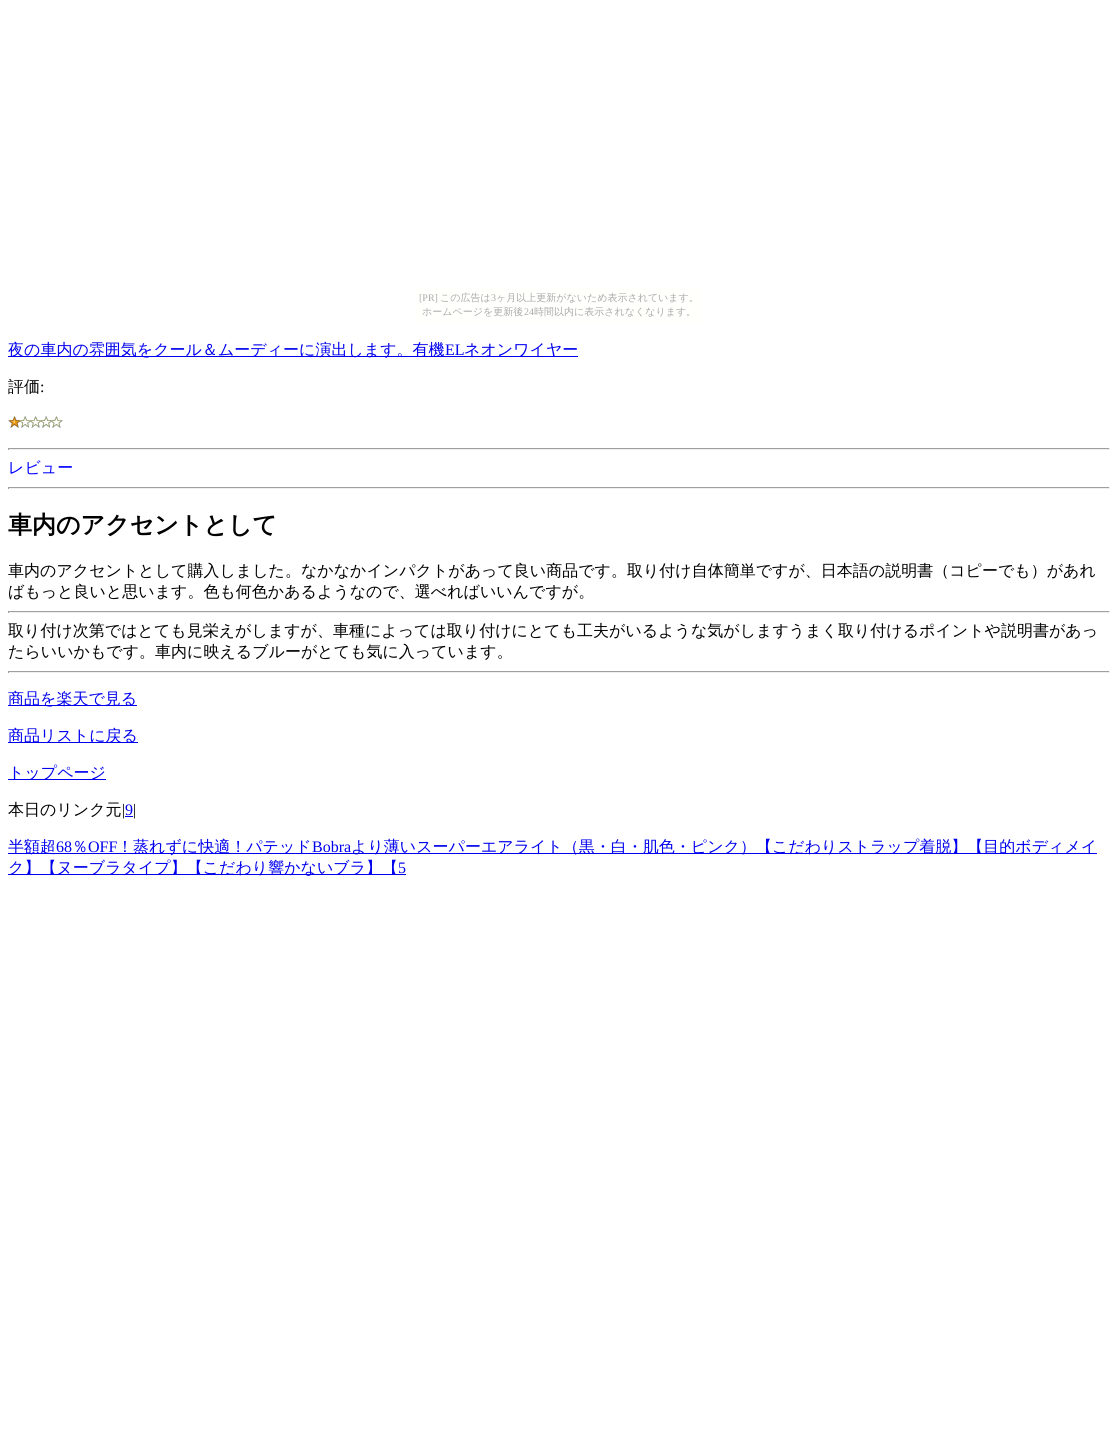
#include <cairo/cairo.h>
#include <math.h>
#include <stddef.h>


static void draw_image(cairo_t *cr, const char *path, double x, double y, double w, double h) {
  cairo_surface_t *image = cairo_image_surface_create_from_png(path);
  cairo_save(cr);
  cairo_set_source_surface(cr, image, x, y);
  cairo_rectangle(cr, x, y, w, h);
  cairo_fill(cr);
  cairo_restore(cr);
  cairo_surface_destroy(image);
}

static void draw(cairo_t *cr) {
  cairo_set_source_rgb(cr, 1, 1, 1);
  cairo_paint(cr);
  cairo_set_source_rgb(cr, 1, 1, 252 / 255.0);
  cairo_rectangle(cr, 416, 288, 286, 34);
  cairo_fill(cr);
  cairo_set_source_rgb(cr, 0, 0, 238 / 255.0);
  cairo_rectangle(cr, 8, 356, 570, 1);
  cairo_fill(cr);
  draw_image(cr, "images/1.png", 8, 416, 55, 12);
  cairo_set_source_rgb(cr, 159 / 255.0, 159 / 255.0, 159 / 255.0);
  cairo_rectangle(cr, 8, 448, 1102, 1);
  cairo_fill(cr);
  cairo_set_source_rgb(cr, 238 / 255.0, 238 / 255.0, 238 / 255.0);
  cairo_rectangle(cr, 1109, 448, 1, 2);
  cairo_fill(cr);
  cairo_rectangle(cr, 8, 449, 1102, 1);
  cairo_fill(cr);
  cairo_set_source_rgb(cr, 159 / 255.0, 159 / 255.0, 159 / 255.0);
  cairo_rectangle(cr, 8, 448, 1, 2);
  cairo_fill(cr);
  cairo_rectangle(cr, 8, 487, 1102, 1);
  cairo_fill(cr);
  cairo_set_source_rgb(cr, 238 / 255.0, 238 / 255.0, 238 / 255.0);
  cairo_rectangle(cr, 1109, 487, 1, 2);
  cairo_fill(cr);
  cairo_rectangle(cr, 8, 488, 1102, 1);
  cairo_fill(cr);
  cairo_set_source_rgb(cr, 159 / 255.0, 159 / 255.0, 159 / 255.0);
  cairo_rectangle(cr, 8, 487, 1, 2);
  cairo_fill(cr);
  cairo_rectangle(cr, 8, 611, 1102, 1);
  cairo_fill(cr);
  cairo_set_source_rgb(cr, 238 / 255.0, 238 / 255.0, 238 / 255.0);
  cairo_rectangle(cr, 1109, 611, 1, 2);
  cairo_fill(cr);
  cairo_rectangle(cr, 8, 612, 1102, 1);
  cairo_fill(cr);
  cairo_set_source_rgb(cr, 159 / 255.0, 159 / 255.0, 159 / 255.0);
  cairo_rectangle(cr, 8, 611, 1, 2);
  cairo_fill(cr);
  cairo_rectangle(cr, 8, 671, 1102, 1);
  cairo_fill(cr);
  cairo_set_source_rgb(cr, 238 / 255.0, 238 / 255.0, 238 / 255.0);
  cairo_rectangle(cr, 1109, 671, 1, 2);
  cairo_fill(cr);
  cairo_rectangle(cr, 8, 672, 1102, 1);
  cairo_fill(cr);
  cairo_set_source_rgb(cr, 159 / 255.0, 159 / 255.0, 159 / 255.0);
  cairo_rectangle(cr, 8, 671, 1, 2);
  cairo_fill(cr);
  cairo_set_source_rgb(cr, 0, 0, 238 / 255.0);
  cairo_rectangle(cr, 8, 705, 129, 1);
  cairo_fill(cr);
  cairo_rectangle(cr, 8, 742, 130, 1);
  cairo_fill(cr);
  cairo_rectangle(cr, 8, 779, 98, 1);
  cairo_fill(cr);
  cairo_rectangle(cr, 125, 816, 8, 1);
  cairo_fill(cr);
  cairo_rectangle(cr, 8, 853, 1089, 1);
  cairo_fill(cr);
  cairo_rectangle(cr, 8, 874, 398, 1);
  cairo_fill(cr);
  cairo_select_font_face(cr, "Liberation Serif", CAIRO_FONT_SLANT_NORMAL, CAIRO_FONT_WEIGHT_NORMAL);
  cairo_set_font_size(cr, 10);
  cairo_set_source_rgb(cr, 170 / 255.0, 170 / 255.0, 170 / 255.0);
  cairo_move_to(cr, 419, 301);
  cairo_show_text(cr, "[PR]");
  cairo_select_font_face(cr, "WenQuanYi Zen Hei Medium", CAIRO_FONT_SLANT_NORMAL, CAIRO_FONT_WEIGHT_NORMAL);
  cairo_move_to(cr, 440, 301);
  cairo_show_text(cr, "この広告は");
  cairo_select_font_face(cr, "Liberation Serif", CAIRO_FONT_SLANT_NORMAL, CAIRO_FONT_WEIGHT_NORMAL);
  cairo_move_to(cr, 491, 301);
  cairo_show_text(cr, "3");
  cairo_select_font_face(cr, "WenQuanYi Zen Hei Medium", CAIRO_FONT_SLANT_NORMAL, CAIRO_FONT_WEIGHT_NORMAL);
  cairo_move_to(cr, 496, 301);
  cairo_show_text(cr, "ヶ月以上更新がないため表示されています。");
  cairo_move_to(cr, 422, 315);
  cairo_show_text(cr, "ホームページを更新後");
  cairo_select_font_face(cr, "Liberation Serif", CAIRO_FONT_SLANT_NORMAL, CAIRO_FONT_WEIGHT_NORMAL);
  cairo_move_to(cr, 524, 315);
  cairo_show_text(cr, "24");
  cairo_select_font_face(cr, "WenQuanYi Zen Hei Medium", CAIRO_FONT_SLANT_NORMAL, CAIRO_FONT_WEIGHT_NORMAL);
  cairo_move_to(cr, 534, 315);
  cairo_show_text(cr, "時間以内に表示されなくなります。");
  cairo_set_font_size(cr, 16);
  cairo_set_source_rgb(cr, 0, 0, 238 / 255.0);
  cairo_move_to(cr, 8, 355);
  cairo_show_text(cr, "夜の車内の雰囲気をクール＆ムーディーに演出します。有機");
  cairo_select_font_face(cr, "Liberation Serif", CAIRO_FONT_SLANT_NORMAL, CAIRO_FONT_WEIGHT_NORMAL);
  cairo_move_to(cr, 445, 355);
  cairo_show_text(cr, "EL");
  cairo_select_font_face(cr, "WenQuanYi Zen Hei Medium", CAIRO_FONT_SLANT_NORMAL, CAIRO_FONT_WEIGHT_NORMAL);
  cairo_move_to(cr, 464, 355);
  cairo_show_text(cr, "ネオンワイヤー");
  cairo_set_source_rgb(cr, 0, 0, 0);
  cairo_move_to(cr, 8, 392);
  cairo_show_text(cr, "評価");
  cairo_select_font_face(cr, "Liberation Serif", CAIRO_FONT_SLANT_NORMAL, CAIRO_FONT_WEIGHT_NORMAL);
  cairo_move_to(cr, 40, 392);
  cairo_show_text(cr, ":");
  cairo_select_font_face(cr, "WenQuanYi Zen Hei Medium", CAIRO_FONT_SLANT_NORMAL, CAIRO_FONT_WEIGHT_NORMAL);
  cairo_set_source_rgb(cr, 0, 0, 1);
  cairo_move_to(cr, 8, 473);
  cairo_show_text(cr, "レビュー");
  cairo_select_font_face(cr, "WenQuanYi Zen Hei", CAIRO_FONT_SLANT_NORMAL, CAIRO_FONT_WEIGHT_BOLD);
  cairo_set_font_size(cr, 24);
  cairo_set_source_rgb(cr, 0, 0, 0);
  cairo_move_to(cr, 8, 533);
  cairo_show_text(cr, "車内のアクセントとして");
  cairo_select_font_face(cr, "WenQuanYi Zen Hei Medium", CAIRO_FONT_SLANT_NORMAL, CAIRO_FONT_WEIGHT_NORMAL);
  cairo_set_font_size(cr, 16);
  cairo_move_to(cr, 8, 576);
  cairo_show_text(cr, "車内のアクセントとして購入しました。なかなかインパクトがあって良い商品です。取り付け自体簡単ですが、日本語の説明書（コピーでも）があれ");
  cairo_move_to(cr, 8, 597);
  cairo_show_text(cr, "ばもっと良いと思います。色も何色かあるようなので、選べればいいんですが。");
  cairo_move_to(cr, 8, 636);
  cairo_show_text(cr, "取り付け次第ではとても見栄えがしますが、車種によっては取り付けにとても工夫がいるような気がしますうまく取り付けるポイントや説明書があっ");
  cairo_move_to(cr, 8, 657);
  cairo_show_text(cr, "たらいいかもです。車内に映えるブルーがとても気に入っています。");
  cairo_set_source_rgb(cr, 0, 0, 238 / 255.0);
  cairo_move_to(cr, 8, 704);
  cairo_show_text(cr, "商品を楽天で見る");
  cairo_move_to(cr, 8, 741);
  cairo_show_text(cr, "商品リストに戻る");
  cairo_move_to(cr, 8, 778);
  cairo_show_text(cr, "トップページ");
  cairo_set_source_rgb(cr, 0, 0, 0);
  cairo_move_to(cr, 8, 815);
  cairo_show_text(cr, "本日のリンク元");
  cairo_select_font_face(cr, "Liberation Serif", CAIRO_FONT_SLANT_NORMAL, CAIRO_FONT_WEIGHT_NORMAL);
  cairo_move_to(cr, 122, 815);
  cairo_show_text(cr, "|");
  cairo_set_source_rgb(cr, 0, 0, 238 / 255.0);
  cairo_move_to(cr, 125, 815);
  cairo_show_text(cr, "9");
  cairo_set_source_rgb(cr, 0, 0, 0);
  cairo_move_to(cr, 133, 815);
  cairo_show_text(cr, "|");
  cairo_select_font_face(cr, "WenQuanYi Zen Hei Medium", CAIRO_FONT_SLANT_NORMAL, CAIRO_FONT_WEIGHT_NORMAL);
  cairo_set_source_rgb(cr, 0, 0, 238 / 255.0);
  cairo_move_to(cr, 8, 852);
  cairo_show_text(cr, "半額超");
  cairo_select_font_face(cr, "Liberation Serif", CAIRO_FONT_SLANT_NORMAL, CAIRO_FONT_WEIGHT_NORMAL);
  cairo_move_to(cr, 56, 852);
  cairo_show_text(cr, "68");
  cairo_select_font_face(cr, "WenQuanYi Zen Hei Medium", CAIRO_FONT_SLANT_NORMAL, CAIRO_FONT_WEIGHT_NORMAL);
  cairo_move_to(cr, 72, 852);
  cairo_show_text(cr, "％");
  cairo_select_font_face(cr, "Liberation Serif", CAIRO_FONT_SLANT_NORMAL, CAIRO_FONT_WEIGHT_NORMAL);
  cairo_move_to(cr, 88, 852);
  cairo_show_text(cr, "OFF");
  cairo_select_font_face(cr, "WenQuanYi Zen Hei Medium", CAIRO_FONT_SLANT_NORMAL, CAIRO_FONT_WEIGHT_NORMAL);
  cairo_move_to(cr, 117, 852);
  cairo_show_text(cr, "！蒸れずに快適！パテッド");
  cairo_select_font_face(cr, "Liberation Serif", CAIRO_FONT_SLANT_NORMAL, CAIRO_FONT_WEIGHT_NORMAL);
  cairo_move_to(cr, 312, 852);
  cairo_show_text(cr, "Bobra");
  cairo_select_font_face(cr, "WenQuanYi Zen Hei Medium", CAIRO_FONT_SLANT_NORMAL, CAIRO_FONT_WEIGHT_NORMAL);
  cairo_move_to(cr, 351, 852);
  cairo_show_text(cr, "より薄いスーパーエアライト（黒・白・肌色・ピンク）【こだわりストラップ着脱】【目的ボディメイ");
  cairo_move_to(cr, 8, 873);
  cairo_show_text(cr, "ク】【ヌーブラタイプ】【こだわり響かないブラ】【");
  cairo_select_font_face(cr, "Liberation Serif", CAIRO_FONT_SLANT_NORMAL, CAIRO_FONT_WEIGHT_NORMAL);
  cairo_move_to(cr, 398, 873);
  cairo_show_text(cr, "5");
}

int main(void) {
  cairo_surface_t *surface = cairo_image_surface_create(CAIRO_FORMAT_RGB24, 1118, 1430);
  cairo_t *cr = cairo_create(surface);
  cairo_font_options_t *options = cairo_font_options_create();
  cairo_font_options_set_hint_metrics(options, CAIRO_HINT_METRICS_OFF);
  cairo_font_options_set_hint_style(options, CAIRO_HINT_STYLE_NONE);
  cairo_set_font_options(cr, options);
  cairo_set_miter_limit(cr, 4);
  draw(cr);
  cairo_surface_write_to_png(surface, "out.png");
  cairo_font_options_destroy(options);
  cairo_destroy(cr);
  cairo_surface_destroy(surface);
  return 0;
}
